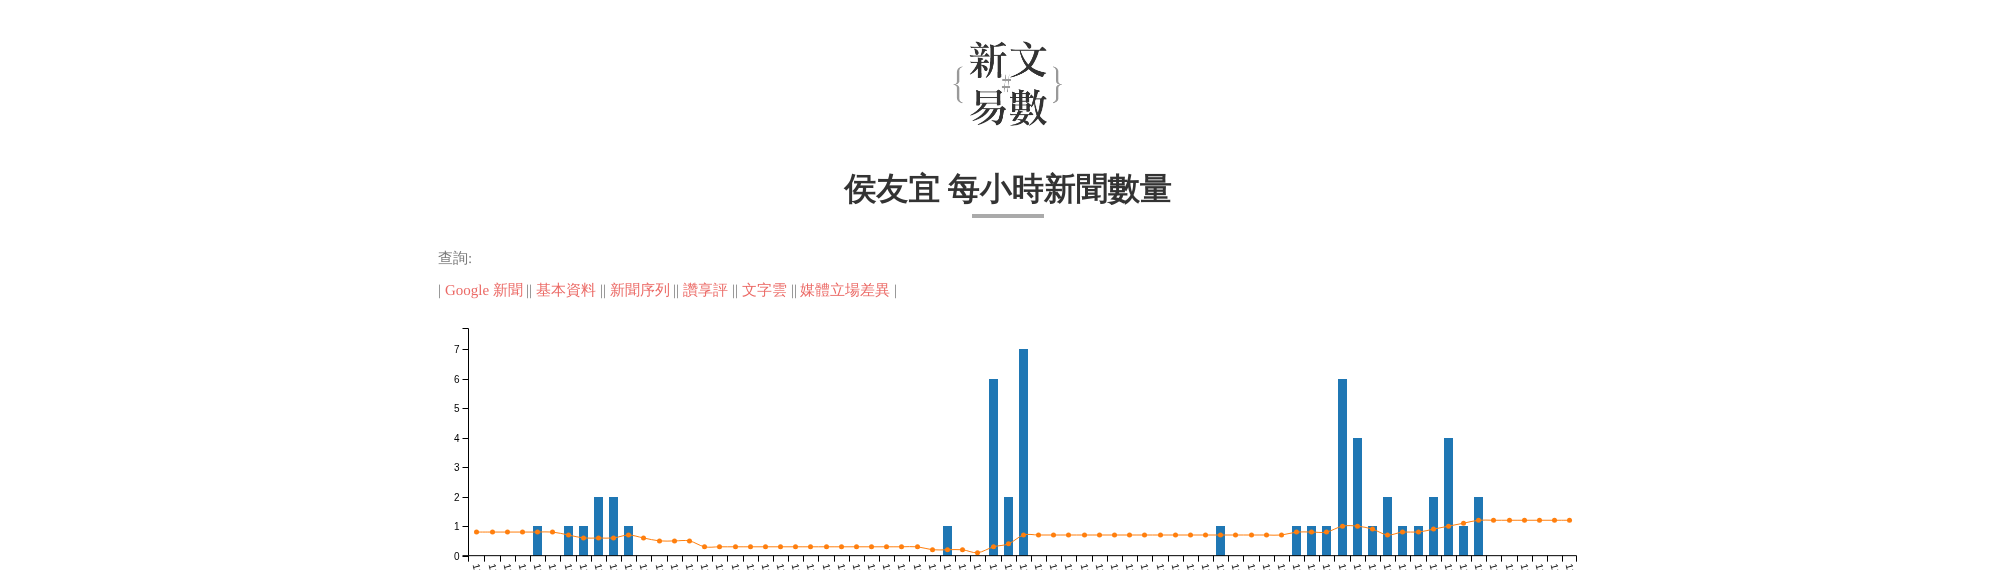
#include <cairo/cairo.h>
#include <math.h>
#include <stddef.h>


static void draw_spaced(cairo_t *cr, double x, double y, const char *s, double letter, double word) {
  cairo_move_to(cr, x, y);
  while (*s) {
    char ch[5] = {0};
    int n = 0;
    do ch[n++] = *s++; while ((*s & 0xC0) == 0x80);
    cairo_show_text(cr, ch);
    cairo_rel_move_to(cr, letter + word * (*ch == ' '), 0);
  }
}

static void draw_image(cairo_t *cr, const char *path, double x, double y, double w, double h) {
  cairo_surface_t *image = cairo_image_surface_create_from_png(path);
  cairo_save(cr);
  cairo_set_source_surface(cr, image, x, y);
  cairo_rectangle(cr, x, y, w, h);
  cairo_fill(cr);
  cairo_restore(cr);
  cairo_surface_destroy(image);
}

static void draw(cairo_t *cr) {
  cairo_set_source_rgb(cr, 1, 1, 1);
  cairo_paint(cr);
  draw_image(cr, "images/1.png", 953, 41, 109, 85);
  cairo_set_source_rgb(cr, 170 / 255.0, 170 / 255.0, 170 / 255.0);
  cairo_rectangle(cr, 972, 214, 72, 4);
  cairo_fill(cr);
  draw_image(cr, "images/2.png", 454, 328, 1123, 242);
  cairo_select_font_face(cr, "WenQuanYi Zen Hei", CAIRO_FONT_SLANT_NORMAL, CAIRO_FONT_WEIGHT_BOLD);
  cairo_set_font_size(cr, 32);
  cairo_set_source_rgb(cr, 51 / 255.0, 51 / 255.0, 51 / 255.0);
  draw_spaced(cr, 844, 200, "侯友宜 每小時新聞數量", 0, -2);
  cairo_select_font_face(cr, "WenQuanYi Zen Hei Medium", CAIRO_FONT_SLANT_NORMAL, CAIRO_FONT_WEIGHT_NORMAL);
  cairo_set_font_size(cr, 15);
  cairo_set_source_rgb(cr, 119 / 255.0, 119 / 255.0, 119 / 255.0);
  cairo_move_to(cr, 438, 263);
  cairo_show_text(cr, "查詢");
  cairo_select_font_face(cr, "Liberation Serif", CAIRO_FONT_SLANT_NORMAL, CAIRO_FONT_WEIGHT_NORMAL);
  cairo_move_to(cr, 468, 263);
  cairo_show_text(cr, ":");
  cairo_move_to(cr, 438, 295);
  cairo_show_text(cr, "|");
  cairo_set_source_rgb(cr, 235 / 255.0, 104 / 255.0, 100 / 255.0);
  cairo_move_to(cr, 445, 295);
  cairo_show_text(cr, "Google");
  cairo_select_font_face(cr, "WenQuanYi Zen Hei Medium", CAIRO_FONT_SLANT_NORMAL, CAIRO_FONT_WEIGHT_NORMAL);
  cairo_move_to(cr, 493, 295);
  cairo_show_text(cr, "新聞");
  cairo_select_font_face(cr, "Liberation Serif", CAIRO_FONT_SLANT_NORMAL, CAIRO_FONT_WEIGHT_NORMAL);
  cairo_set_source_rgb(cr, 119 / 255.0, 119 / 255.0, 119 / 255.0);
  cairo_move_to(cr, 526, 295);
  cairo_show_text(cr, "||");
  cairo_select_font_face(cr, "WenQuanYi Zen Hei Medium", CAIRO_FONT_SLANT_NORMAL, CAIRO_FONT_WEIGHT_NORMAL);
  cairo_set_source_rgb(cr, 235 / 255.0, 104 / 255.0, 100 / 255.0);
  cairo_move_to(cr, 536, 295);
  cairo_show_text(cr, "基本資料");
  cairo_select_font_face(cr, "Liberation Serif", CAIRO_FONT_SLANT_NORMAL, CAIRO_FONT_WEIGHT_NORMAL);
  cairo_set_source_rgb(cr, 119 / 255.0, 119 / 255.0, 119 / 255.0);
  cairo_move_to(cr, 600, 295);
  cairo_show_text(cr, "||");
  cairo_select_font_face(cr, "WenQuanYi Zen Hei Medium", CAIRO_FONT_SLANT_NORMAL, CAIRO_FONT_WEIGHT_NORMAL);
  cairo_set_source_rgb(cr, 235 / 255.0, 104 / 255.0, 100 / 255.0);
  cairo_move_to(cr, 610, 295);
  cairo_show_text(cr, "新聞序列");
  cairo_select_font_face(cr, "Liberation Serif", CAIRO_FONT_SLANT_NORMAL, CAIRO_FONT_WEIGHT_NORMAL);
  cairo_set_source_rgb(cr, 119 / 255.0, 119 / 255.0, 119 / 255.0);
  cairo_move_to(cr, 673, 295);
  cairo_show_text(cr, "||");
  cairo_select_font_face(cr, "WenQuanYi Zen Hei Medium", CAIRO_FONT_SLANT_NORMAL, CAIRO_FONT_WEIGHT_NORMAL);
  cairo_set_source_rgb(cr, 235 / 255.0, 104 / 255.0, 100 / 255.0);
  cairo_move_to(cr, 683, 295);
  cairo_show_text(cr, "讚享評");
  cairo_select_font_face(cr, "Liberation Serif", CAIRO_FONT_SLANT_NORMAL, CAIRO_FONT_WEIGHT_NORMAL);
  cairo_set_source_rgb(cr, 119 / 255.0, 119 / 255.0, 119 / 255.0);
  cairo_move_to(cr, 732, 295);
  cairo_show_text(cr, "||");
  cairo_select_font_face(cr, "WenQuanYi Zen Hei Medium", CAIRO_FONT_SLANT_NORMAL, CAIRO_FONT_WEIGHT_NORMAL);
  cairo_set_source_rgb(cr, 235 / 255.0, 104 / 255.0, 100 / 255.0);
  cairo_move_to(cr, 742, 295);
  cairo_show_text(cr, "文字雲");
  cairo_select_font_face(cr, "Liberation Serif", CAIRO_FONT_SLANT_NORMAL, CAIRO_FONT_WEIGHT_NORMAL);
  cairo_set_source_rgb(cr, 119 / 255.0, 119 / 255.0, 119 / 255.0);
  cairo_move_to(cr, 791, 295);
  cairo_show_text(cr, "||");
  cairo_select_font_face(cr, "WenQuanYi Zen Hei Medium", CAIRO_FONT_SLANT_NORMAL, CAIRO_FONT_WEIGHT_NORMAL);
  cairo_set_source_rgb(cr, 235 / 255.0, 104 / 255.0, 100 / 255.0);
  cairo_move_to(cr, 800, 295);
  cairo_show_text(cr, "媒體立場差異");
  cairo_select_font_face(cr, "Liberation Serif", CAIRO_FONT_SLANT_NORMAL, CAIRO_FONT_WEIGHT_NORMAL);
  cairo_set_source_rgb(cr, 119 / 255.0, 119 / 255.0, 119 / 255.0);
  cairo_move_to(cr, 894, 295);
  cairo_show_text(cr, "|");
}

int main(void) {
  cairo_surface_t *surface = cairo_image_surface_create(CAIRO_FORMAT_RGB24, 2016, 570);
  cairo_t *cr = cairo_create(surface);
  cairo_font_options_t *options = cairo_font_options_create();
  cairo_font_options_set_hint_metrics(options, CAIRO_HINT_METRICS_OFF);
  cairo_font_options_set_hint_style(options, CAIRO_HINT_STYLE_NONE);
  cairo_set_font_options(cr, options);
  cairo_set_miter_limit(cr, 4);
  draw(cr);
  cairo_surface_write_to_png(surface, "out.png");
  cairo_font_options_destroy(options);
  cairo_destroy(cr);
  cairo_surface_destroy(surface);
  return 0;
}
